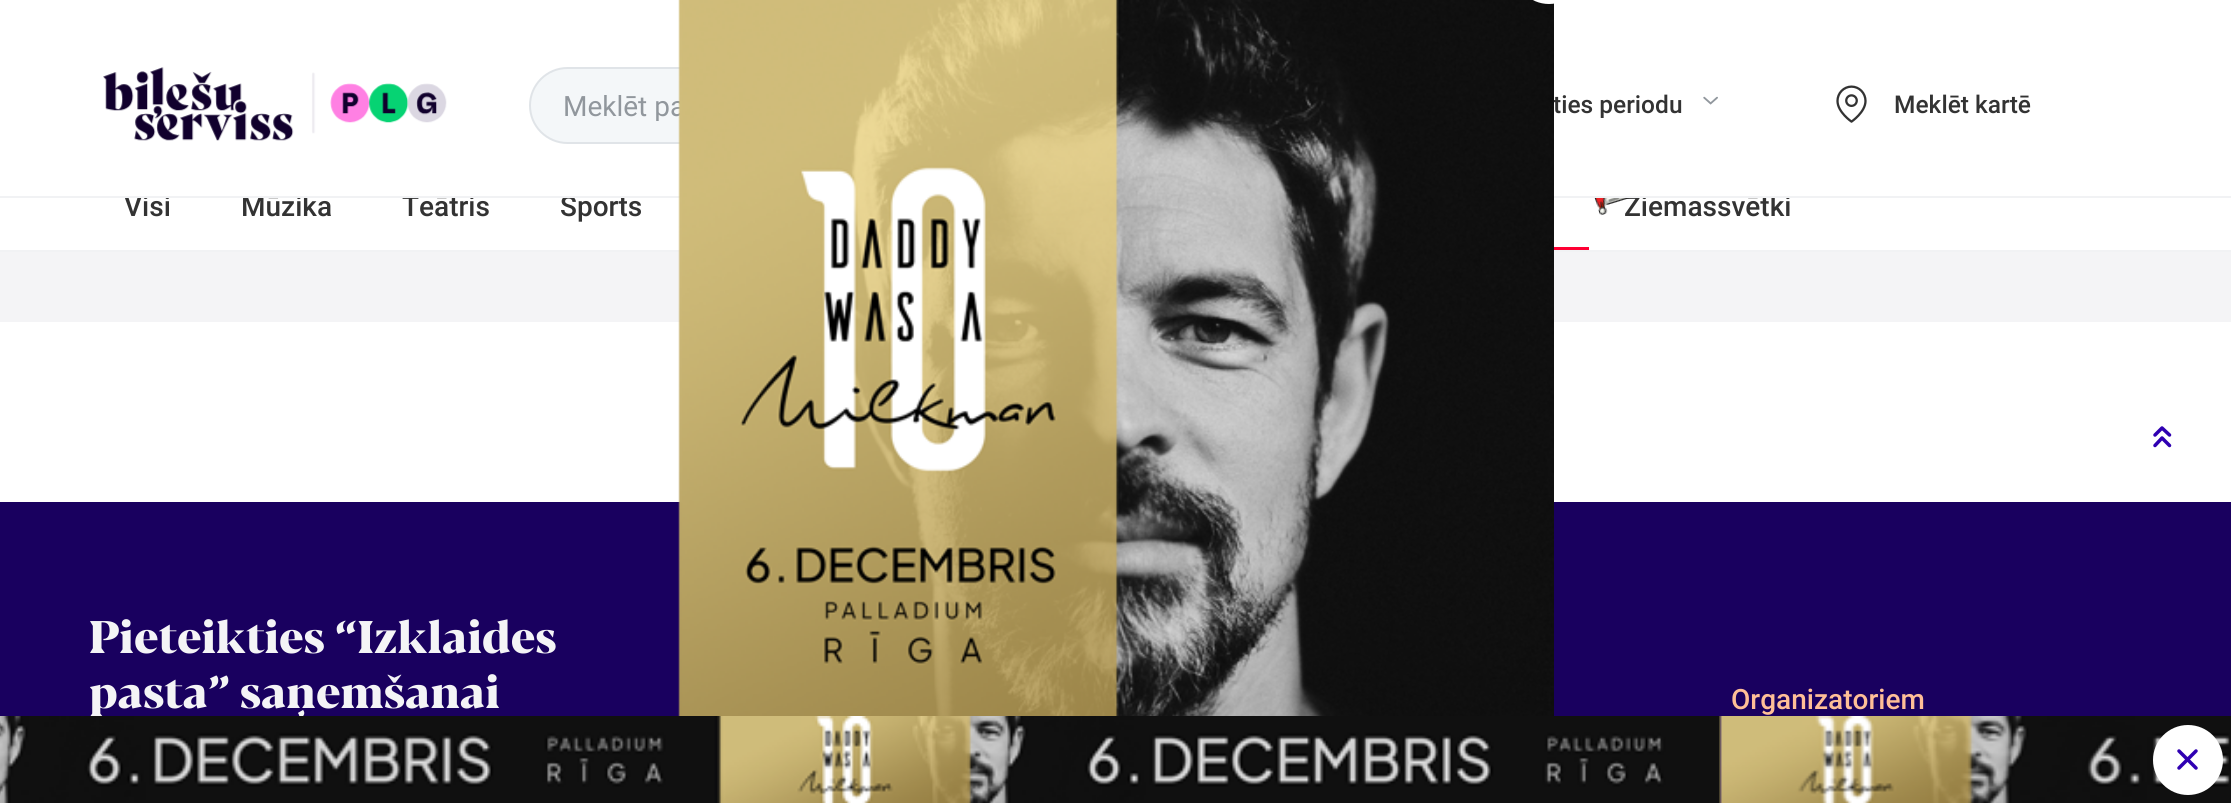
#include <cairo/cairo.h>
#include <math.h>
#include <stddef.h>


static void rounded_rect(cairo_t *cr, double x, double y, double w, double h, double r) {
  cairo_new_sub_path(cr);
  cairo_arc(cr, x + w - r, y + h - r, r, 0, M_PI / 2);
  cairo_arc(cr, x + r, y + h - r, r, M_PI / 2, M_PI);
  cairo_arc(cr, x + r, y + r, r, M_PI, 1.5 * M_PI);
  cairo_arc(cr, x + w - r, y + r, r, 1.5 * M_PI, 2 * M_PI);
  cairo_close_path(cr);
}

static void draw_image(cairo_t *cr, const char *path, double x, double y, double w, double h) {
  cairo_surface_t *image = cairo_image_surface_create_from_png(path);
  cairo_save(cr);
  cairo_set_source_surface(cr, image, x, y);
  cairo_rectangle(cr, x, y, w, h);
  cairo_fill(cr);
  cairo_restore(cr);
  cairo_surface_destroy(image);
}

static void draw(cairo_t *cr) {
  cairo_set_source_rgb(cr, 244 / 255.0, 244 / 255.0, 246 / 255.0);
  cairo_paint(cr);
  cairo_set_source_rgb(cr, 1, 1, 1);
  cairo_rectangle(cr, 0, 198, 2231, 52);
  cairo_fill(cr);
  cairo_set_source_rgb(cr, 241 / 255.0, 242 / 255.0, 244 / 255.0);
  cairo_rectangle(cr, 0, 250, 2231, 2);
  cairo_fill(cr);
  cairo_set_source_rgb(cr, 1, 0, 51 / 255.0);
  cairo_rectangle(cr, 1554, 247, 35, 3);
  cairo_fill(cr);
  cairo_set_source_rgb(cr, 1, 1, 1);
  cairo_rectangle(cr, 0, 322, 2231, 180);
  cairo_fill(cr);
  cairo_new_path(cr);
  cairo_move_to(cr, 2169.5, 435);
  cairo_line_to(cr, 2162, 428);
  cairo_line_to(cr, 2155, 435);
  cairo_move_to(cr, 2169.5, 445.5);
  cairo_line_to(cr, 2162, 438);
  cairo_line_to(cr, 2155, 445.5);
  cairo_set_source_rgb(cr, 47 / 255.0, 0, 178 / 255.0);
  cairo_set_line_width(cr, 3.5);
  cairo_set_line_cap(cr, CAIRO_LINE_CAP_ROUND);
  cairo_set_line_join(cr, CAIRO_LINE_JOIN_ROUND);
  cairo_stroke(cr);
  cairo_set_source_rgb(cr, 25 / 255.0, 0, 95 / 255.0);
  cairo_rectangle(cr, 0, 502, 2231, 301);
  cairo_fill(cr);
  cairo_select_font_face(cr, "Roboto Medium", CAIRO_FONT_SLANT_NORMAL, CAIRO_FONT_WEIGHT_NORMAL);
  cairo_set_font_size(cr, 28);
  cairo_set_source_rgb(cr, 51 / 255.0, 51 / 255.0, 51 / 255.0);
  cairo_move_to(cr, 124, 216);
  cairo_show_text(cr, "Visi");
  cairo_move_to(cr, 241, 216);
  cairo_show_text(cr, "Mūzika");
  cairo_move_to(cr, 402, 216);
  cairo_show_text(cr, "Teātris");
  cairo_move_to(cr, 560, 216);
  cairo_show_text(cr, "Sports");
  cairo_move_to(cr, 1624, 216);
  cairo_show_text(cr, "Ziemassvētki");
  cairo_set_source_rgb(cr, 1, 1, 1);
  cairo_rectangle(cr, 0, 0, 2231, 196);
  cairo_fill(cr);
  cairo_set_font_size(cr, 24.5);
  cairo_set_source_rgb(cr, 51 / 255.0, 51 / 255.0, 51 / 255.0);
  cairo_move_to(cr, 1553, 113);
  cairo_show_text(cr, "ties periodu");
  cairo_set_source_rgb(cr, 244 / 255.0, 247 / 255.0, 249 / 255.0);
  rounded_rect(cr, 530, 68, 841, 75, 37.5);
  cairo_fill_preserve(cr);
  cairo_set_source_rgb(cr, 224 / 255.0, 228 / 255.0, 232 / 255.0);
  cairo_set_line_width(cr, 2);
  cairo_set_line_cap(cr, CAIRO_LINE_CAP_BUTT);
  cairo_set_line_join(cr, CAIRO_LINE_JOIN_MITER);
  cairo_stroke(cr);
  cairo_save(cr);
  cairo_rectangle(cr, 564, 88, 735, 33);
  cairo_clip(cr);
  cairo_select_font_face(cr, "Roboto", CAIRO_FONT_SLANT_NORMAL, CAIRO_FONT_WEIGHT_NORMAL);
  cairo_set_font_size(cr, 28);
  cairo_set_source_rgb(cr, 145 / 255.0, 151 / 255.0, 157 / 255.0);
  cairo_move_to(cr, 563, 116);
  cairo_show_text(cr, "Meklēt pa");
  cairo_restore(cr);
  cairo_set_source_rgb(cr, 241 / 255.0, 242 / 255.0, 244 / 255.0);
  cairo_rectangle(cr, 0, 196, 2231, 2);
  cairo_fill(cr);
  draw_image(cr, "images/1.png", 678, 0, 876, 716);
  cairo_set_source_rgb(cr, 1, 1, 1);
  rounded_rect(cr, 1514, -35, 70, 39, 35);
  cairo_fill(cr);
  draw_image(cr, "images/4.png", 1836, 85, 31, 38);
  cairo_set_source_rgb(cr, 51 / 255.0, 51 / 255.0, 51 / 255.0);
  cairo_move_to(cr, 1894, 113);
  cairo_show_text(cr, "Meklēt kartē");
  draw_image(cr, "images/3.png", 1703, 96, 15, 9);
  draw_image(cr, "images/2.png", 103, 67, 344, 74);
  draw_image(cr, "images/5.png", 1594, 198, 36, 18);
  cairo_select_font_face(cr, "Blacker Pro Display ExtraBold", CAIRO_FONT_SLANT_NORMAL, CAIRO_FONT_WEIGHT_NORMAL);
  cairo_set_font_size(cr, 45.5);
  cairo_set_source_rgb(cr, 244 / 255.0, 244 / 255.0, 246 / 255.0);
  cairo_move_to(cr, 89, 653);
  cairo_show_text(cr, "Pieteikties “Izklaides");
  cairo_move_to(cr, 89, 708);
  cairo_show_text(cr, "pasta” saņemšanai");
  cairo_select_font_face(cr, "Roboto Medium", CAIRO_FONT_SLANT_NORMAL, CAIRO_FONT_WEIGHT_NORMAL);
  cairo_set_font_size(cr, 28);
  cairo_set_source_rgb(cr, 1, 191 / 255.0, 151 / 255.0);
  cairo_move_to(cr, 1731, 709);
  cairo_show_text(cr, "Organizatoriem");
  draw_image(cr, "images/6.png", 0, 716, 1721, 87);
  draw_image(cr, "images/7.png", 1719, 716, 512, 87);
  cairo_set_source_rgb(cr, 1, 1, 1);
  cairo_arc(cr, 2188, 760, 35, 0, 2 * M_PI);
  cairo_fill(cr);
  cairo_new_path(cr);
  cairo_move_to(cr, 2196, 751);
  cairo_line_to(cr, 2179, 768);
  cairo_move_to(cr, 2179, 751);
  cairo_line_to(cr, 2196, 768);
  cairo_set_source_rgb(cr, 47 / 255.0, 0, 178 / 255.0);
  cairo_set_line_width(cr, 3.5);
  cairo_set_line_cap(cr, CAIRO_LINE_CAP_ROUND);
  cairo_set_line_join(cr, CAIRO_LINE_JOIN_ROUND);
  cairo_stroke(cr);
}

int main(void) {
  cairo_surface_t *surface = cairo_image_surface_create(CAIRO_FORMAT_RGB24, 2231, 803);
  cairo_t *cr = cairo_create(surface);
  cairo_font_options_t *options = cairo_font_options_create();
  cairo_font_options_set_hint_metrics(options, CAIRO_HINT_METRICS_OFF);
  cairo_font_options_set_hint_style(options, CAIRO_HINT_STYLE_NONE);
  cairo_set_font_options(cr, options);
  cairo_set_miter_limit(cr, 4);
  draw(cr);
  cairo_surface_write_to_png(surface, "out.png");
  cairo_font_options_destroy(options);
  cairo_destroy(cr);
  cairo_surface_destroy(surface);
  return 0;
}
